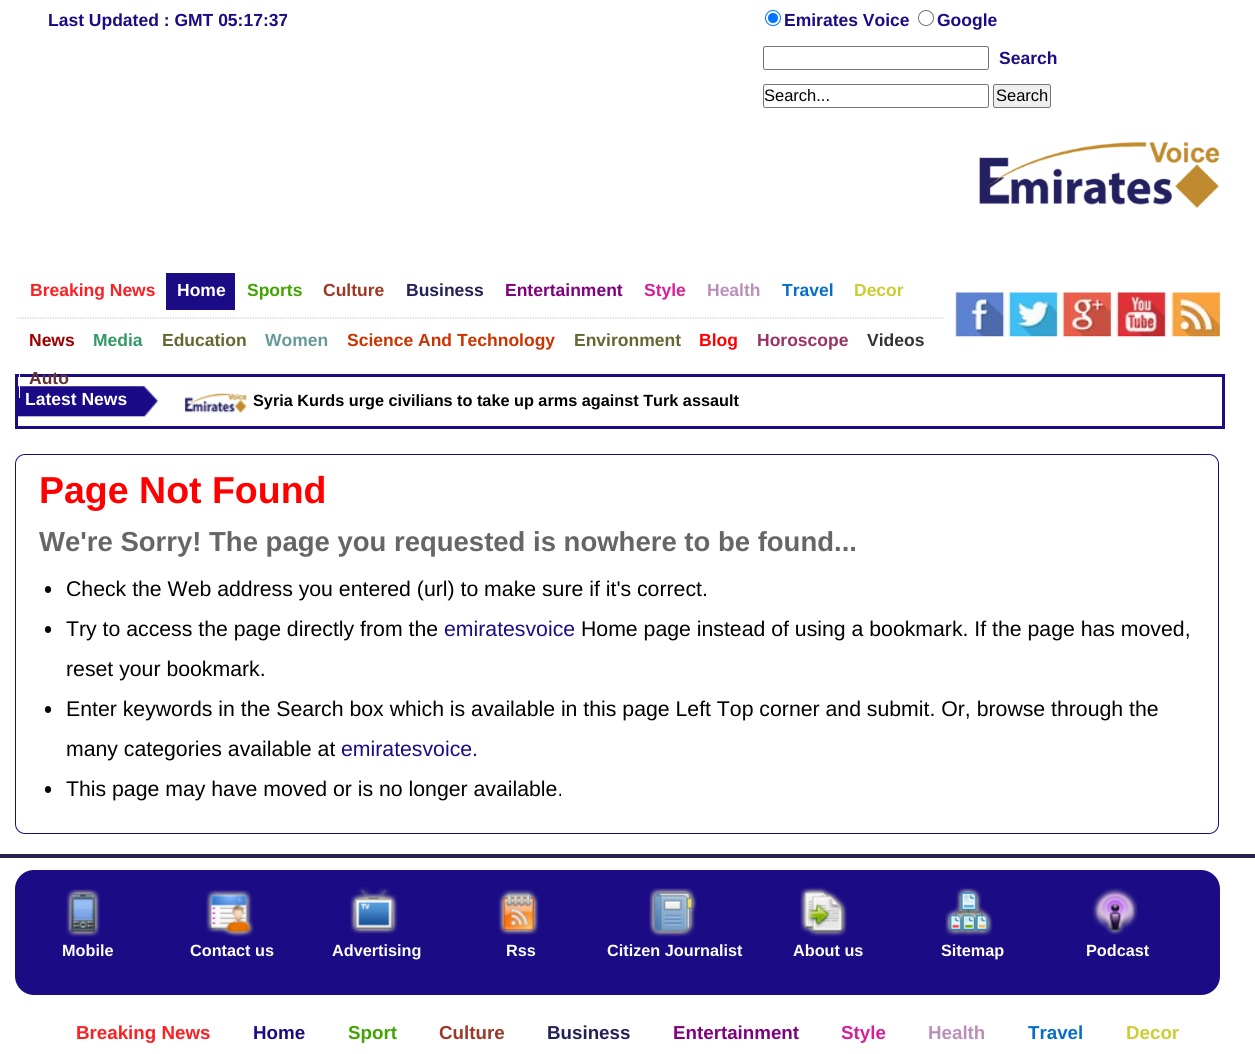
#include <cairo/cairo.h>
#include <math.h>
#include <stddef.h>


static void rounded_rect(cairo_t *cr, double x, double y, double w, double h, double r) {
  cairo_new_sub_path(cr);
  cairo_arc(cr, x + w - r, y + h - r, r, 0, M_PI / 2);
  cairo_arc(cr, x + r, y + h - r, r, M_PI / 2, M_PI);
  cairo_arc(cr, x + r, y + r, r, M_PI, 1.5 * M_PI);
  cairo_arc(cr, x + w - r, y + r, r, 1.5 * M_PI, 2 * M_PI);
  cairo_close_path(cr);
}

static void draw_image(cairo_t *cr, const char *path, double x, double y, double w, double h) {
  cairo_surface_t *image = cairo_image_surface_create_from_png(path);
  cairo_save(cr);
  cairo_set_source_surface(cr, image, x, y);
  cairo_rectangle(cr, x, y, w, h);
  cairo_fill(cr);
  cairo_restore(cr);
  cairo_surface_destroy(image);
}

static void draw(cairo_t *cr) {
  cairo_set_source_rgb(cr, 1, 1, 1);
  cairo_paint(cr);
  cairo_arc(cr, 773, 18, 7.5, 0, 2 * M_PI);
  cairo_set_source_rgb(cr, 0, 117 / 255.0, 1);
  cairo_set_line_width(cr, 1);
  cairo_stroke(cr);
  cairo_arc(cr, 773, 18, 5, 0, 2 * M_PI);
  cairo_fill(cr);
  cairo_arc(cr, 926, 18, 7.5, 0, 2 * M_PI);
  cairo_set_source_rgb(cr, 118 / 255.0, 118 / 255.0, 118 / 255.0);
  cairo_stroke(cr);
  rounded_rect(cr, 763.5, 46.5, 225, 23, 2);
  cairo_stroke(cr);
  rounded_rect(cr, 763.5, 84.5, 225, 23, 2);
  cairo_stroke(cr);
  cairo_set_source_rgb(cr, 239 / 255.0, 239 / 255.0, 239 / 255.0);
  rounded_rect(cr, 993.5, 84.5, 57, 23, 2);
  cairo_fill_preserve(cr);
  cairo_set_source_rgb(cr, 118 / 255.0, 118 / 255.0, 118 / 255.0);
  cairo_stroke(cr);
  draw_image(cr, "images/1.png", 979, 142, 241, 66);
  cairo_set_source_rgb(cr, 27 / 255.0, 12 / 255.0, 133 / 255.0);
  cairo_rectangle(cr, 166, 273, 69, 37);
  cairo_fill(cr);
  cairo_new_path(cr);
  cairo_move_to(cr, 17.5, 318);
  cairo_line_to(cr, 945, 318);
  cairo_set_source_rgb(cr, 204 / 255.0, 204 / 255.0, 204 / 255.0);
  cairo_set_line_width(cr, 1.2);
  cairo_set_dash(cr, (double[]){1.25, 1.25}, 2, 0);
  cairo_stroke(cr);
  cairo_rectangle(cr, 16.5, 375.5, 1207, 52);
  cairo_set_source_rgb(cr, 27 / 255.0, 12 / 255.0, 133 / 255.0);
  cairo_set_line_width(cr, 3);
  cairo_set_dash(cr, NULL, 0, 0);
  cairo_stroke(cr);
  draw_image(cr, "images/3.png", 18, 386, 140, 31);
  cairo_set_source_rgb(cr, 1, 1, 1);
  cairo_rectangle(cr, 19, 374, 1, 24);
  cairo_fill(cr);
  draw_image(cr, "images/2.png", 955, 292, 265, 45);
  draw_image(cr, "images/4.png", 184, 393, 63, 20);
  rounded_rect(cr, 15.5, 454.5, 1203, 379, 9.5);
  cairo_set_source_rgb(cr, 27 / 255.0, 12 / 255.0, 133 / 255.0);
  cairo_set_line_width(cr, 1);
  cairo_stroke(cr);
  cairo_set_source_rgb(cr, 0, 0, 0);
  rounded_rect(cr, 45, 586, 6, 7, 3);
  cairo_fill(cr);
  rounded_rect(cr, 45, 626, 6, 7, 3);
  cairo_fill(cr);
  rounded_rect(cr, 45, 706, 6, 7, 3);
  cairo_fill(cr);
  rounded_rect(cr, 45, 786, 6, 7, 3);
  cairo_fill(cr);
  cairo_set_source_rgb(cr, 36 / 255.0, 33 / 255.0, 76 / 255.0);
  cairo_rectangle(cr, 0, 854, 1255, 4);
  cairo_fill(cr);
  cairo_set_source_rgb(cr, 27 / 255.0, 12 / 255.0, 133 / 255.0);
  rounded_rect(cr, 15, 870, 1205, 125, 19);
  cairo_fill(cr);
  draw_image(cr, "images/5.png", 66, 889, 34, 48);
  draw_image(cr, "images/6.png", 206, 890, 48, 47);
  draw_image(cr, "images/7.png", 350, 887, 48, 47);
  draw_image(cr, "images/8.png", 498, 889, 41, 46);
  draw_image(cr, "images/9.png", 649, 888, 48, 49);
  draw_image(cr, "images/10.png", 800, 887, 47, 50);
  draw_image(cr, "images/11.png", 945, 887, 48, 49);
  draw_image(cr, "images/12.png", 1092, 888, 46, 47);
  cairo_select_font_face(cr, "Liberation Sans", CAIRO_FONT_SLANT_NORMAL, CAIRO_FONT_WEIGHT_BOLD);
  cairo_set_font_size(cr, 17.5);
  cairo_move_to(cr, 48, 26);
  cairo_show_text(cr, "Last Updated : GMT 05:17:37");
  cairo_move_to(cr, 784, 26);
  cairo_show_text(cr, "Emirates Voice");
  cairo_move_to(cr, 937, 26);
  cairo_show_text(cr, "Google");
  cairo_move_to(cr, 999, 64);
  cairo_show_text(cr, "Search");
  cairo_select_font_face(cr, "Liberation Sans", CAIRO_FONT_SLANT_NORMAL, CAIRO_FONT_WEIGHT_NORMAL);
  cairo_set_font_size(cr, 16.5);
  cairo_set_source_rgb(cr, 0, 0, 0);
  cairo_move_to(cr, 764, 101);
  cairo_show_text(cr, "Search...");
  cairo_move_to(cr, 996, 101);
  cairo_show_text(cr, "Search");
  cairo_select_font_face(cr, "Liberation Sans", CAIRO_FONT_SLANT_NORMAL, CAIRO_FONT_WEIGHT_BOLD);
  cairo_set_font_size(cr, 17.5);
  cairo_set_source_rgb(cr, 252 / 255.0, 32 / 255.0, 34 / 255.0);
  cairo_move_to(cr, 30, 296);
  cairo_show_text(cr, "Breaking News");
  cairo_set_source_rgb(cr, 1, 1, 1);
  cairo_move_to(cr, 177, 296);
  cairo_show_text(cr, "Home");
  cairo_set_source_rgb(cr, 64 / 255.0, 165 / 255.0, 1 / 255.0);
  cairo_move_to(cr, 247, 296);
  cairo_show_text(cr, "Sports");
  cairo_set_source_rgb(cr, 158 / 255.0, 56 / 255.0, 37 / 255.0);
  cairo_move_to(cr, 323, 296);
  cairo_show_text(cr, "Culture");
  cairo_set_source_rgb(cr, 36 / 255.0, 33 / 255.0, 89 / 255.0);
  cairo_move_to(cr, 406, 296);
  cairo_show_text(cr, "Business");
  cairo_set_source_rgb(cr, 129 / 255.0, 0, 127 / 255.0);
  cairo_move_to(cr, 505, 296);
  cairo_show_text(cr, "Entertainment");
  cairo_set_source_rgb(cr, 214 / 255.0, 30 / 255.0, 152 / 255.0);
  cairo_move_to(cr, 644, 296);
  cairo_show_text(cr, "Style");
  cairo_set_source_rgb(cr, 186 / 255.0, 143 / 255.0, 186 / 255.0);
  cairo_move_to(cr, 707, 296);
  cairo_show_text(cr, "Health");
  cairo_set_source_rgb(cr, 6 / 255.0, 109 / 255.0, 201 / 255.0);
  cairo_move_to(cr, 782, 296);
  cairo_show_text(cr, "Travel");
  cairo_set_source_rgb(cr, 204 / 255.0, 205 / 255.0, 51 / 255.0);
  cairo_move_to(cr, 854, 296);
  cairo_show_text(cr, "Decor");
  cairo_set_source_rgb(cr, 156 / 255.0, 0, 0);
  cairo_move_to(cr, 29, 346);
  cairo_show_text(cr, "News");
  cairo_set_source_rgb(cr, 51 / 255.0, 153 / 255.0, 103 / 255.0);
  cairo_move_to(cr, 93, 346);
  cairo_show_text(cr, "Media");
  cairo_set_source_rgb(cr, 102 / 255.0, 102 / 255.0, 50 / 255.0);
  cairo_move_to(cr, 162, 346);
  cairo_show_text(cr, "Education");
  cairo_set_source_rgb(cr, 102 / 255.0, 153 / 255.0, 153 / 255.0);
  cairo_move_to(cr, 265, 346);
  cairo_show_text(cr, "Women");
  cairo_set_source_rgb(cr, 204 / 255.0, 51 / 255.0, 0);
  cairo_move_to(cr, 347, 346);
  cairo_show_text(cr, "Science And Technology");
  cairo_set_source_rgb(cr, 102 / 255.0, 102 / 255.0, 50 / 255.0);
  cairo_move_to(cr, 574, 346);
  cairo_show_text(cr, "Environment");
  cairo_set_source_rgb(cr, 1, 0, 0);
  cairo_move_to(cr, 699, 346);
  cairo_show_text(cr, "Blog");
  cairo_set_source_rgb(cr, 153 / 255.0, 51 / 255.0, 101 / 255.0);
  cairo_move_to(cr, 757, 346);
  cairo_show_text(cr, "Horoscope");
  cairo_set_source_rgb(cr, 51 / 255.0, 51 / 255.0, 51 / 255.0);
  cairo_move_to(cr, 867, 346);
  cairo_show_text(cr, "Videos");
  cairo_set_source_rgb(cr, 102 / 255.0, 51 / 255.0, 51 / 255.0);
  cairo_move_to(cr, 29, 384);
  cairo_show_text(cr, "Auto");
  cairo_set_source_rgb(cr, 1, 1, 1);
  cairo_move_to(cr, 25, 405);
  cairo_show_text(cr, "Latest News");
  cairo_set_font_size(cr, 16.25);
  cairo_set_source_rgb(cr, 0, 0, 0);
  cairo_move_to(cr, 253, 406);
  cairo_show_text(cr, "Syria Kurds urge civilians to take up arms against Turk assault");
  cairo_set_font_size(cr, 37.5);
  cairo_set_source_rgb(cr, 1, 0, 0);
  cairo_move_to(cr, 39, 503);
  cairo_show_text(cr, "Page Not Found");
  cairo_set_font_size(cr, 27.5);
  cairo_set_source_rgb(cr, 102 / 255.0, 102 / 255.0, 102 / 255.0);
  cairo_move_to(cr, 39, 551);
  cairo_show_text(cr, "We're Sorry! The page you requested is nowhere to be found...");
  cairo_select_font_face(cr, "Liberation Sans", CAIRO_FONT_SLANT_NORMAL, CAIRO_FONT_WEIGHT_NORMAL);
  cairo_set_font_size(cr, 21.25);
  cairo_set_source_rgb(cr, 0, 0, 0);
  cairo_move_to(cr, 66, 596);
  cairo_show_text(cr, "Check the Web address you entered (url) to make sure if it's correct.");
  cairo_move_to(cr, 66, 636);
  cairo_show_text(cr, "Try to access the page directly from the");
  cairo_set_source_rgb(cr, 27 / 255.0, 12 / 255.0, 133 / 255.0);
  cairo_move_to(cr, 444, 636);
  cairo_show_text(cr, "emiratesvoice");
  cairo_set_source_rgb(cr, 0, 0, 0);
  cairo_move_to(cr, 581, 636);
  cairo_show_text(cr, "Home page instead of using a bookmark. If the page has moved,");
  cairo_move_to(cr, 66, 676);
  cairo_show_text(cr, "reset your bookmark.");
  cairo_move_to(cr, 66, 716);
  cairo_show_text(cr, "Enter keywords in the Search box which is available in this page Left Top corner and submit. Or, browse through the");
  cairo_move_to(cr, 66, 756);
  cairo_show_text(cr, "many categories available at");
  cairo_set_source_rgb(cr, 27 / 255.0, 12 / 255.0, 133 / 255.0);
  cairo_move_to(cr, 341, 756);
  cairo_show_text(cr, "emiratesvoice.");
  cairo_set_source_rgb(cr, 0, 0, 0);
  cairo_move_to(cr, 66, 796);
  cairo_show_text(cr, "This page may have moved or is no longer available.");
  cairo_select_font_face(cr, "Liberation Sans", CAIRO_FONT_SLANT_NORMAL, CAIRO_FONT_WEIGHT_BOLD);
  cairo_set_font_size(cr, 16.25);
  cairo_set_source_rgb(cr, 1, 1, 1);
  cairo_move_to(cr, 62, 956);
  cairo_show_text(cr, "Mobile");
  cairo_move_to(cr, 190, 956);
  cairo_show_text(cr, "Contact us");
  cairo_move_to(cr, 332, 956);
  cairo_show_text(cr, "Advertising");
  cairo_move_to(cr, 506, 956);
  cairo_show_text(cr, "Rss");
  cairo_move_to(cr, 607, 956);
  cairo_show_text(cr, "Citizen Journalist");
  cairo_move_to(cr, 793, 956);
  cairo_show_text(cr, "About us");
  cairo_move_to(cr, 941, 956);
  cairo_show_text(cr, "Sitemap");
  cairo_move_to(cr, 1086, 956);
  cairo_show_text(cr, "Podcast");
  cairo_set_font_size(cr, 18.75);
  cairo_set_source_rgb(cr, 252 / 255.0, 32 / 255.0, 34 / 255.0);
  cairo_move_to(cr, 76, 1039);
  cairo_show_text(cr, "Breaking News");
  cairo_set_source_rgb(cr, 27 / 255.0, 12 / 255.0, 133 / 255.0);
  cairo_move_to(cr, 253, 1039);
  cairo_show_text(cr, "Home");
  cairo_set_source_rgb(cr, 64 / 255.0, 165 / 255.0, 1 / 255.0);
  cairo_move_to(cr, 348, 1039);
  cairo_show_text(cr, "Sport");
  cairo_set_source_rgb(cr, 158 / 255.0, 56 / 255.0, 37 / 255.0);
  cairo_move_to(cr, 439, 1039);
  cairo_show_text(cr, "Culture");
  cairo_set_source_rgb(cr, 36 / 255.0, 33 / 255.0, 89 / 255.0);
  cairo_move_to(cr, 547, 1039);
  cairo_show_text(cr, "Business");
  cairo_set_source_rgb(cr, 129 / 255.0, 0, 127 / 255.0);
  cairo_move_to(cr, 673, 1039);
  cairo_show_text(cr, "Entertainment");
  cairo_set_source_rgb(cr, 214 / 255.0, 30 / 255.0, 152 / 255.0);
  cairo_move_to(cr, 841, 1039);
  cairo_show_text(cr, "Style");
  cairo_set_source_rgb(cr, 186 / 255.0, 143 / 255.0, 186 / 255.0);
  cairo_move_to(cr, 928, 1039);
  cairo_show_text(cr, "Health");
  cairo_set_source_rgb(cr, 6 / 255.0, 109 / 255.0, 201 / 255.0);
  cairo_move_to(cr, 1028, 1039);
  cairo_show_text(cr, "Travel");
  cairo_set_source_rgb(cr, 204 / 255.0, 205 / 255.0, 51 / 255.0);
  cairo_move_to(cr, 1126, 1039);
  cairo_show_text(cr, "Decor");
}

int main(void) {
  cairo_surface_t *surface = cairo_image_surface_create(CAIRO_FORMAT_RGB24, 1255, 1054);
  cairo_t *cr = cairo_create(surface);
  cairo_font_options_t *options = cairo_font_options_create();
  cairo_font_options_set_hint_metrics(options, CAIRO_HINT_METRICS_OFF);
  cairo_font_options_set_hint_style(options, CAIRO_HINT_STYLE_NONE);
  cairo_set_font_options(cr, options);
  cairo_set_miter_limit(cr, 4);
  draw(cr);
  cairo_surface_write_to_png(surface, "out.png");
  cairo_font_options_destroy(options);
  cairo_destroy(cr);
  cairo_surface_destroy(surface);
  return 0;
}
